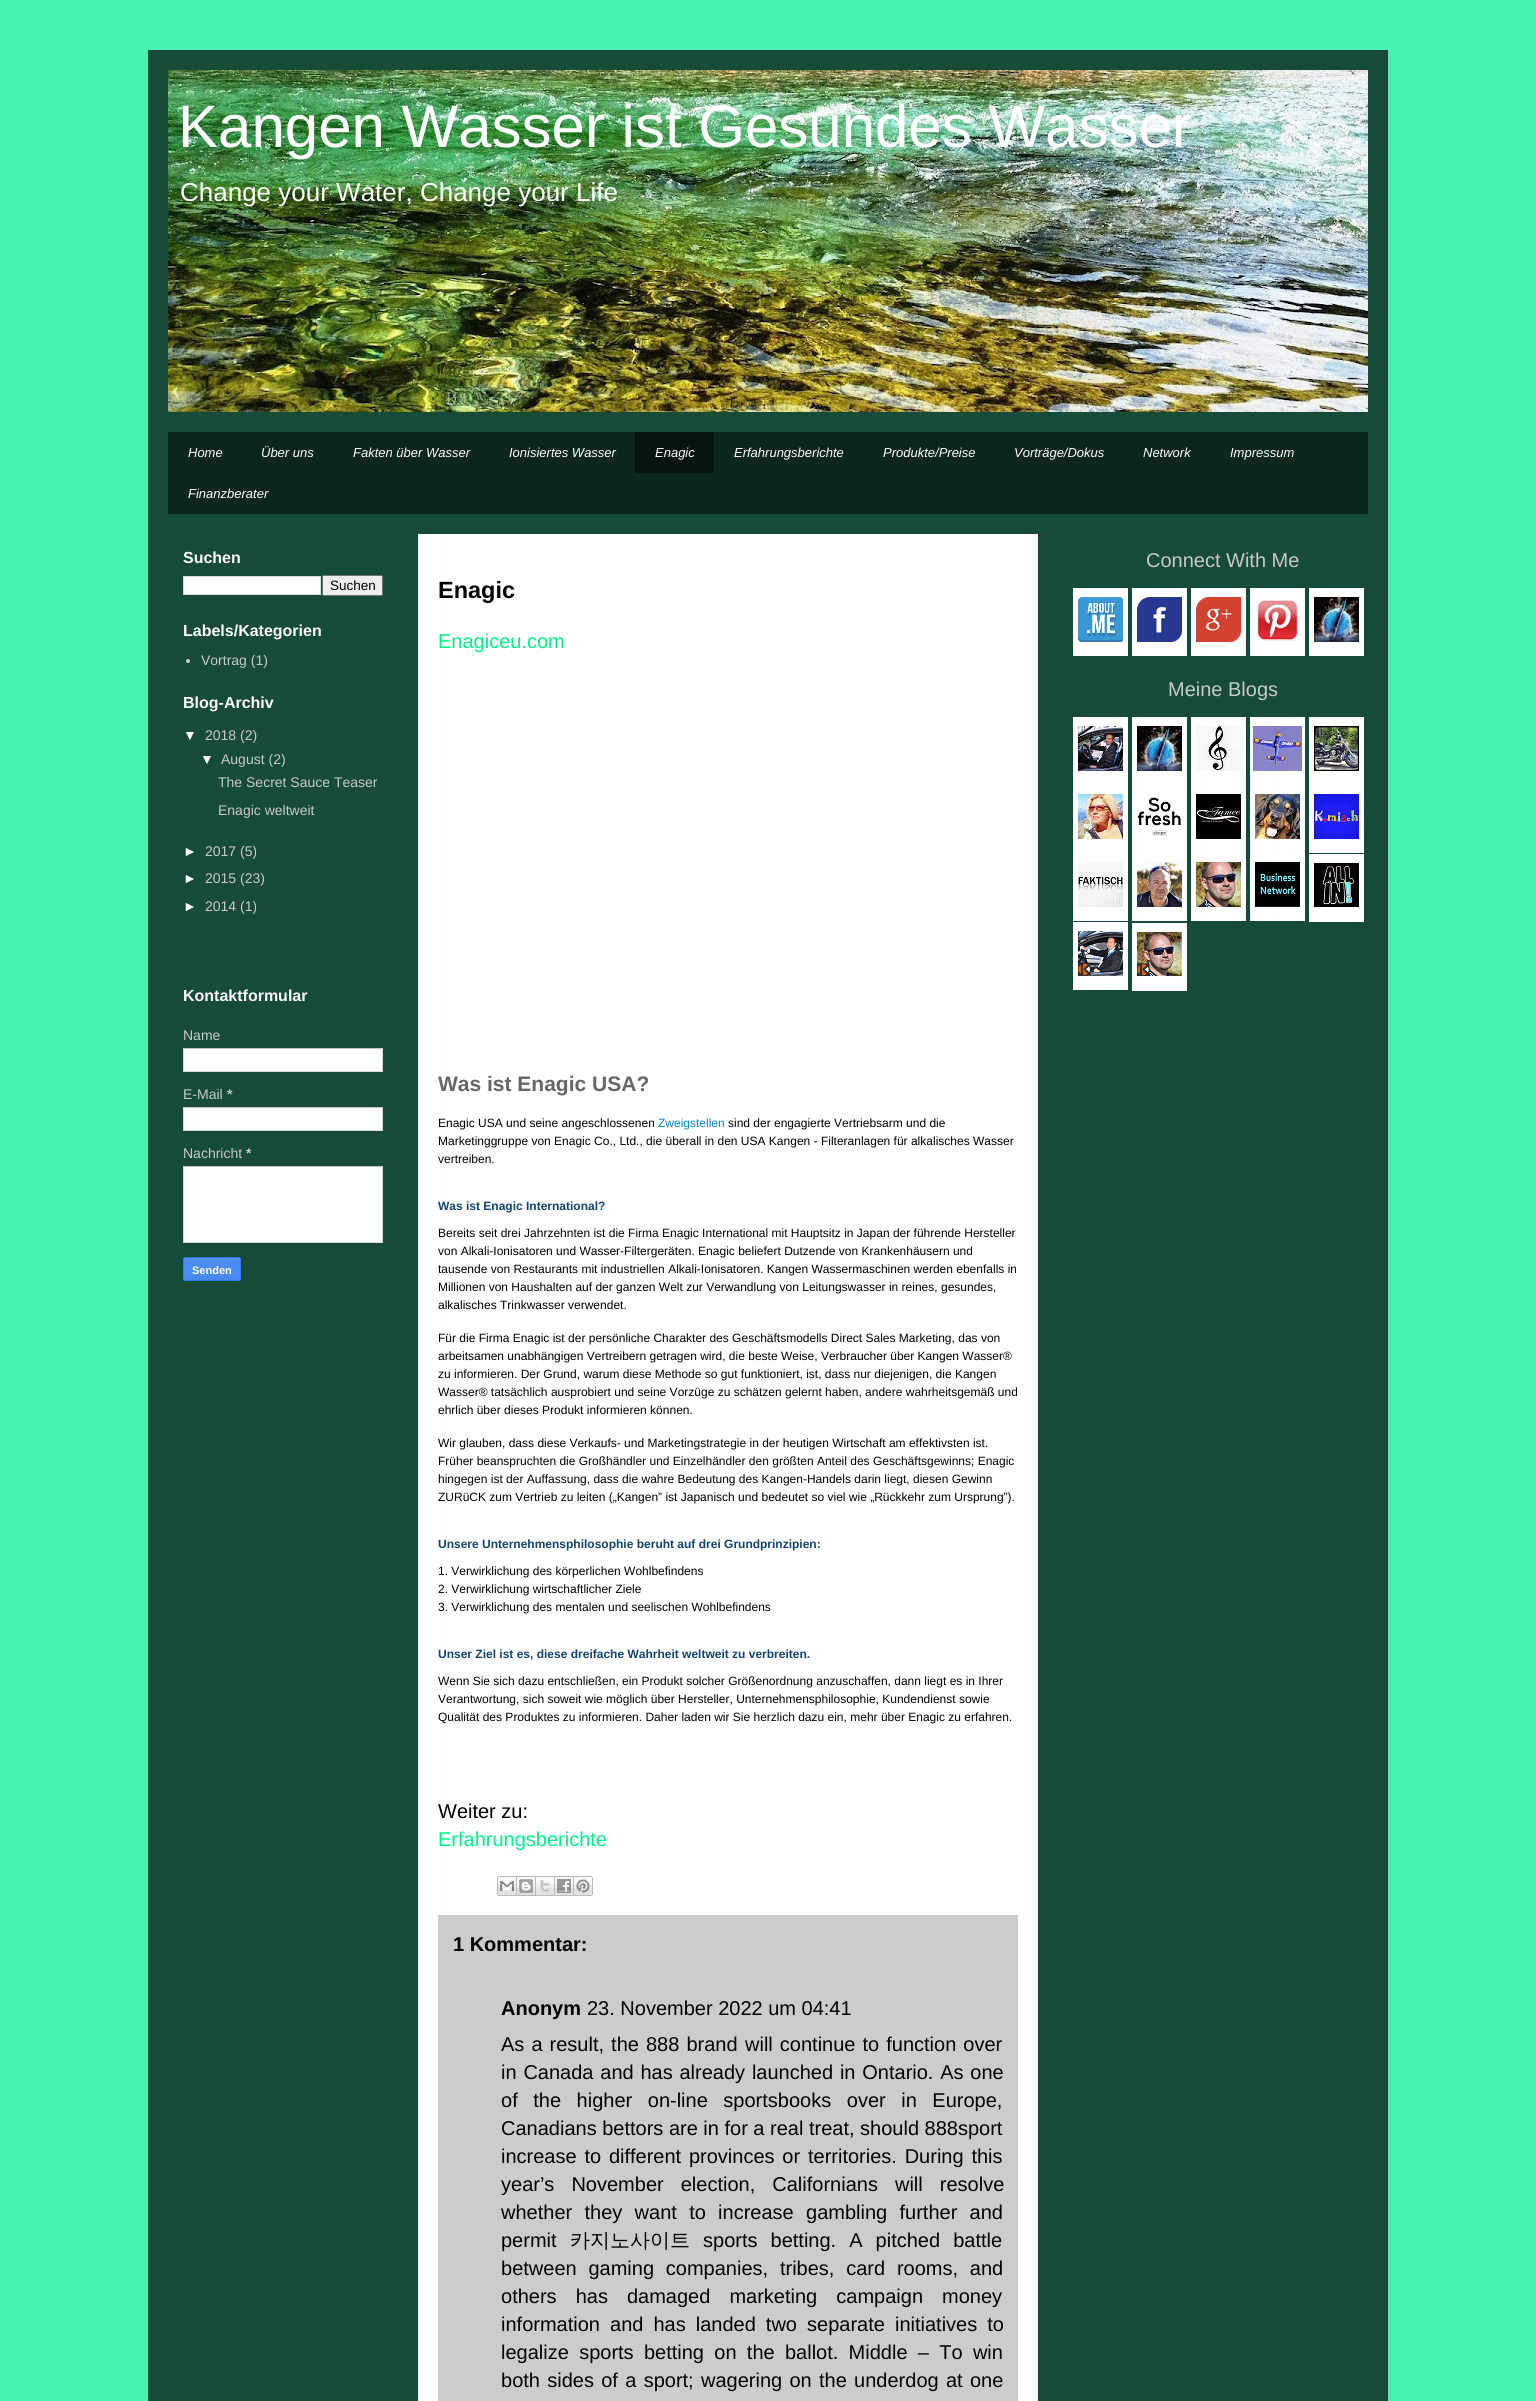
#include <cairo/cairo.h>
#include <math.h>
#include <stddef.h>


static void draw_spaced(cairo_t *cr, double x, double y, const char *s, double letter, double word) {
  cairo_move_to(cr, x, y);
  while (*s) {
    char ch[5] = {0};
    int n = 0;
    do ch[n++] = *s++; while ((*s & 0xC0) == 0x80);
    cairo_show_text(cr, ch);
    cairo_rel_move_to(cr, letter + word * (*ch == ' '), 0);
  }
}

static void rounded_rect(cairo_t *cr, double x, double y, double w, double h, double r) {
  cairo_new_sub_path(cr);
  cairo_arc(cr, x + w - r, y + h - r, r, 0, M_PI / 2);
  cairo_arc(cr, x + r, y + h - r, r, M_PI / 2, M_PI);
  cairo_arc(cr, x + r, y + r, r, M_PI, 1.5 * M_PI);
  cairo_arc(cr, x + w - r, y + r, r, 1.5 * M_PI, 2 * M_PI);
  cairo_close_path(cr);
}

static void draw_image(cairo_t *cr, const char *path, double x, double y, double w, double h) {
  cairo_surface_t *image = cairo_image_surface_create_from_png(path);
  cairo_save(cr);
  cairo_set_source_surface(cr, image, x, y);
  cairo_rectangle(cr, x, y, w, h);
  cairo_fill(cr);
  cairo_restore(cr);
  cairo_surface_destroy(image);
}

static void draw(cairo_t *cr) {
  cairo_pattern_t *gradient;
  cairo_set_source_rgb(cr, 72 / 255.0, 243 / 255.0, 177 / 255.0);
  cairo_paint(cr);
  cairo_set_source_rgb(cr, 21 / 255.0, 75 / 255.0, 55 / 255.0);
  cairo_rectangle(cr, 148, 50, 1240, 2351);
  cairo_fill(cr);
  draw_image(cr, "images/1.png", 168, 70, 1200, 342);
  cairo_set_source_rgb(cr, 11 / 255.0, 38 / 255.0, 28 / 255.0);
  cairo_rectangle(cr, 168, 432, 1200, 82);
  cairo_fill(cr);
  cairo_set_source_rgb(cr, 6 / 255.0, 19 / 255.0, 14 / 255.0);
  cairo_rectangle(cr, 635, 432, 79, 41);
  cairo_fill(cr);
  cairo_set_source_rgb(cr, 1, 1, 1);
  cairo_rectangle(cr, 183.5, 576.5, 137, 18);
  cairo_fill_preserve(cr);
  cairo_set_source_rgb(cr, 221 / 255.0, 221 / 255.0, 221 / 255.0);
  cairo_set_line_width(cr, 1);
  cairo_stroke(cr);
  cairo_set_source_rgb(cr, 239 / 255.0, 239 / 255.0, 239 / 255.0);
  rounded_rect(cr, 322.5, 575.5, 60, 20, 1.5);
  cairo_fill_preserve(cr);
  cairo_set_source_rgb(cr, 118 / 255.0, 118 / 255.0, 118 / 255.0);
  cairo_stroke(cr);
  cairo_set_source_rgb(cr, 201 / 255.0, 201 / 255.0, 201 / 255.0);
  cairo_arc(cr, 188, 661, 2, 0, 2 * M_PI);
  cairo_fill(cr);
  cairo_set_source_rgb(cr, 1, 1, 1);
  cairo_rectangle(cr, 184, 1049, 198, 22);
  cairo_fill(cr);
  cairo_set_source_rgb(cr, 192 / 255.0, 192 / 255.0, 192 / 255.0);
  cairo_rectangle(cr, 183, 1048, 200, 1);
  cairo_fill(cr);
  cairo_set_source_rgb(cr, 217 / 255.0, 217 / 255.0, 217 / 255.0);
  cairo_rectangle(cr, 382, 1048, 1, 24);
  cairo_fill(cr);
  cairo_rectangle(cr, 183, 1071, 200, 1);
  cairo_fill(cr);
  cairo_rectangle(cr, 183, 1048, 1, 24);
  cairo_fill(cr);
  cairo_set_source_rgb(cr, 1, 1, 1);
  cairo_rectangle(cr, 184, 1108, 198, 22);
  cairo_fill(cr);
  cairo_set_source_rgb(cr, 192 / 255.0, 192 / 255.0, 192 / 255.0);
  cairo_rectangle(cr, 183, 1107, 200, 1);
  cairo_fill(cr);
  cairo_set_source_rgb(cr, 217 / 255.0, 217 / 255.0, 217 / 255.0);
  cairo_rectangle(cr, 382, 1107, 1, 24);
  cairo_fill(cr);
  cairo_rectangle(cr, 183, 1130, 200, 1);
  cairo_fill(cr);
  cairo_rectangle(cr, 183, 1107, 1, 24);
  cairo_fill(cr);
  cairo_set_source_rgb(cr, 1, 1, 1);
  cairo_rectangle(cr, 184, 1167, 198, 75);
  cairo_fill(cr);
  cairo_set_source_rgb(cr, 192 / 255.0, 192 / 255.0, 192 / 255.0);
  cairo_rectangle(cr, 183, 1166, 200, 1);
  cairo_fill(cr);
  cairo_set_source_rgb(cr, 217 / 255.0, 217 / 255.0, 217 / 255.0);
  cairo_rectangle(cr, 382, 1166, 1, 77);
  cairo_fill(cr);
  cairo_rectangle(cr, 183, 1242, 200, 1);
  cairo_fill(cr);
  cairo_rectangle(cr, 183, 1166, 1, 77);
  cairo_fill(cr);
  cairo_save(cr);
  rounded_rect(cr, 183, 1257, 58, 24, 2);
  cairo_clip(cr);
  gradient = cairo_pattern_create_linear(212, 1258, 212, 1280);
  cairo_pattern_add_color_stop_rgba(gradient, 0, 77 / 255.0, 144 / 255.0, 254 / 255.0, 1);
  cairo_pattern_add_color_stop_rgba(gradient, 1, 71 / 255.0, 135 / 255.0, 237 / 255.0, 1);
  cairo_set_source(cr, gradient);
  cairo_pattern_destroy(gradient);
  cairo_rectangle(cr, 183, 1258, 58, 22);
  cairo_fill(cr);
  cairo_restore(cr);
  rounded_rect(cr, 183.5, 1257.5, 57, 23, 1.5);
  cairo_set_source_rgb(cr, 48 / 255.0, 121 / 255.0, 237 / 255.0);
  cairo_stroke(cr);
  cairo_set_source_rgb(cr, 1, 1, 1);
  cairo_rectangle(cr, 418, 534, 620, 1867);
  cairo_fill(cr);
  draw_image(cr, "images/2.png", 497, 1876, 20, 20);
  draw_image(cr, "images/3.png", 517, 1876, 19, 20);
  draw_image(cr, "images/4.png", 536, 1876, 19, 20);
  draw_image(cr, "images/5.png", 555, 1876, 19, 20);
  draw_image(cr, "images/6.png", 574, 1876, 19, 20);
  cairo_set_source_rgb(cr, 204 / 255.0, 204 / 255.0, 204 / 255.0);
  cairo_rectangle(cr, 438, 1915, 580, 486);
  cairo_fill(cr);
  cairo_set_source_rgb(cr, 1, 1, 1);
  cairo_rectangle(cr, 1073, 588, 55, 68);
  cairo_fill(cr);
  draw_image(cr, "images/7.png", 1078, 597, 45, 45);
  cairo_rectangle(cr, 1132, 588, 55, 68);
  cairo_fill(cr);
  draw_image(cr, "images/8.png", 1137, 597, 45, 45);
  cairo_rectangle(cr, 1191, 588, 55, 68);
  cairo_fill(cr);
  draw_image(cr, "images/9.png", 1196, 597, 45, 45);
  cairo_rectangle(cr, 1250, 588, 55, 68);
  cairo_fill(cr);
  draw_image(cr, "images/10.png", 1257, 600, 42, 41);
  cairo_rectangle(cr, 1309, 588, 55, 68);
  cairo_fill(cr);
  draw_image(cr, "images/11.png", 1314, 597, 45, 45);
  cairo_rectangle(cr, 1073, 717, 55, 204);
  cairo_fill(cr);
  draw_image(cr, "images/12.png", 1078, 726, 45, 45);
  cairo_rectangle(cr, 1132, 717, 55, 204);
  cairo_fill(cr);
  draw_image(cr, "images/11.png", 1137, 726, 45, 45);
  cairo_rectangle(cr, 1191, 717, 55, 204);
  cairo_fill(cr);
  draw_image(cr, "images/13.png", 1196, 726, 45, 45);
  cairo_rectangle(cr, 1250, 717, 55, 204);
  cairo_fill(cr);
  draw_image(cr, "images/14.png", 1253, 726, 49, 45);
  cairo_rectangle(cr, 1309, 717, 55, 136);
  cairo_fill(cr);
  draw_image(cr, "images/15.png", 1314, 726, 45, 45);
  draw_image(cr, "images/16.png", 1078, 794, 45, 45);
  draw_image(cr, "images/17.png", 1137, 797, 44, 39);
  draw_image(cr, "images/18.png", 1196, 794, 45, 45);
  draw_image(cr, "images/19.png", 1255, 794, 45, 45);
  draw_image(cr, "images/20.png", 1314, 794, 45, 45);
  draw_image(cr, "images/21.png", 1078, 862, 45, 45);
  draw_image(cr, "images/22.png", 1137, 862, 45, 45);
  draw_image(cr, "images/23.png", 1196, 862, 45, 45);
  draw_image(cr, "images/24.png", 1255, 862, 45, 45);
  cairo_rectangle(cr, 1309, 854, 55, 68);
  cairo_fill(cr);
  draw_image(cr, "images/25.png", 1314, 863, 45, 44);
  cairo_rectangle(cr, 1073, 922, 55, 68);
  cairo_fill(cr);
  draw_image(cr, "images/26.png", 1078, 931, 45, 45);
  cairo_rectangle(cr, 1132, 923, 55, 68);
  cairo_fill(cr);
  draw_image(cr, "images/27.png", 1137, 932, 45, 44);
  cairo_select_font_face(cr, "Liberation Sans", CAIRO_FONT_SLANT_NORMAL, CAIRO_FONT_WEIGHT_NORMAL);
  cairo_set_font_size(cr, 60);
  cairo_move_to(cr, 178, 147);
  cairo_show_text(cr, "Kangen Wasser ist Gesundes Wasser");
  cairo_set_font_size(cr, 26);
  cairo_move_to(cr, 180, 201);
  cairo_show_text(cr, "Change your Water, Change your Life");
  cairo_select_font_face(cr, "Liberation Sans", CAIRO_FONT_SLANT_ITALIC, CAIRO_FONT_WEIGHT_NORMAL);
  cairo_set_font_size(cr, 13);
  cairo_move_to(cr, 188, 457);
  cairo_show_text(cr, "Home");
  cairo_move_to(cr, 261, 457);
  cairo_show_text(cr, "Über uns");
  cairo_move_to(cr, 353, 457);
  cairo_show_text(cr, "Fakten über Wasser");
  cairo_move_to(cr, 509, 457);
  cairo_show_text(cr, "Ionisiertes Wasser");
  cairo_move_to(cr, 655, 457);
  cairo_show_text(cr, "Enagic");
  cairo_move_to(cr, 734, 457);
  cairo_show_text(cr, "Erfahrungsberichte");
  cairo_move_to(cr, 883, 457);
  cairo_show_text(cr, "Produkte/Preise");
  cairo_move_to(cr, 1014, 457);
  cairo_show_text(cr, "Vorträge/Dokus");
  cairo_move_to(cr, 1143, 457);
  cairo_show_text(cr, "Network");
  cairo_move_to(cr, 1230, 457);
  cairo_show_text(cr, "Impressum");
  cairo_move_to(cr, 188, 498);
  cairo_show_text(cr, "Finanzberater");
  cairo_select_font_face(cr, "Liberation Sans", CAIRO_FONT_SLANT_NORMAL, CAIRO_FONT_WEIGHT_BOLD);
  cairo_set_font_size(cr, 16);
  cairo_move_to(cr, 183, 563);
  cairo_show_text(cr, "Suchen");
  cairo_select_font_face(cr, "Liberation Sans", CAIRO_FONT_SLANT_NORMAL, CAIRO_FONT_WEIGHT_NORMAL);
  cairo_set_font_size(cr, 13.5);
  cairo_set_source_rgb(cr, 0, 0, 0);
  cairo_move_to(cr, 330, 590);
  cairo_show_text(cr, "Suchen");
  cairo_select_font_face(cr, "Liberation Sans", CAIRO_FONT_SLANT_NORMAL, CAIRO_FONT_WEIGHT_BOLD);
  cairo_set_font_size(cr, 16);
  cairo_set_source_rgb(cr, 1, 1, 1);
  cairo_move_to(cr, 183, 636);
  cairo_show_text(cr, "Labels/Kategorien");
  cairo_select_font_face(cr, "Liberation Sans", CAIRO_FONT_SLANT_NORMAL, CAIRO_FONT_WEIGHT_NORMAL);
  cairo_set_font_size(cr, 14);
  cairo_set_source_rgb(cr, 201 / 255.0, 201 / 255.0, 201 / 255.0);
  cairo_move_to(cr, 201, 665);
  cairo_show_text(cr, "Vortrag (1)");
  cairo_select_font_face(cr, "Liberation Sans", CAIRO_FONT_SLANT_NORMAL, CAIRO_FONT_WEIGHT_BOLD);
  cairo_set_font_size(cr, 16);
  cairo_set_source_rgb(cr, 1, 1, 1);
  cairo_move_to(cr, 183, 708);
  cairo_show_text(cr, "Blog-Archiv");
  cairo_select_font_face(cr, "Liberation Sans", CAIRO_FONT_SLANT_NORMAL, CAIRO_FONT_WEIGHT_NORMAL);
  cairo_set_font_size(cr, 14);
  cairo_move_to(cr, 183, 740);
  cairo_show_text(cr, "▼");
  cairo_set_source_rgb(cr, 201 / 255.0, 201 / 255.0, 201 / 255.0);
  cairo_move_to(cr, 205, 740);
  cairo_show_text(cr, "2018 (2)");
  cairo_set_source_rgb(cr, 1, 1, 1);
  cairo_move_to(cr, 200, 764);
  cairo_show_text(cr, "▼");
  cairo_set_source_rgb(cr, 201 / 255.0, 201 / 255.0, 201 / 255.0);
  cairo_move_to(cr, 221, 764);
  cairo_show_text(cr, "August (2)");
  cairo_move_to(cr, 218, 787);
  cairo_show_text(cr, "The Secret Sauce Teaser");
  cairo_move_to(cr, 218, 815);
  cairo_show_text(cr, "Enagic weltweit");
  cairo_set_source_rgb(cr, 1, 1, 1);
  cairo_move_to(cr, 183, 856);
  cairo_show_text(cr, "►");
  cairo_set_source_rgb(cr, 201 / 255.0, 201 / 255.0, 201 / 255.0);
  cairo_move_to(cr, 205, 856);
  cairo_show_text(cr, "2017 (5)");
  cairo_set_source_rgb(cr, 1, 1, 1);
  cairo_move_to(cr, 183, 883);
  cairo_show_text(cr, "►");
  cairo_set_source_rgb(cr, 201 / 255.0, 201 / 255.0, 201 / 255.0);
  cairo_move_to(cr, 205, 883);
  cairo_show_text(cr, "2015 (23)");
  cairo_set_source_rgb(cr, 1, 1, 1);
  cairo_move_to(cr, 183, 911);
  cairo_show_text(cr, "►");
  cairo_set_source_rgb(cr, 201 / 255.0, 201 / 255.0, 201 / 255.0);
  cairo_move_to(cr, 205, 911);
  cairo_show_text(cr, "2014 (1)");
  cairo_select_font_face(cr, "Liberation Sans", CAIRO_FONT_SLANT_NORMAL, CAIRO_FONT_WEIGHT_BOLD);
  cairo_set_font_size(cr, 16);
  cairo_set_source_rgb(cr, 1, 1, 1);
  cairo_move_to(cr, 183, 1001);
  cairo_show_text(cr, "Kontaktformular");
  cairo_select_font_face(cr, "Liberation Sans", CAIRO_FONT_SLANT_NORMAL, CAIRO_FONT_WEIGHT_NORMAL);
  cairo_set_font_size(cr, 14);
  cairo_set_source_rgb(cr, 201 / 255.0, 201 / 255.0, 201 / 255.0);
  cairo_move_to(cr, 183, 1040);
  cairo_show_text(cr, "Name");
  cairo_move_to(cr, 183, 1099);
  cairo_show_text(cr, "E-Mail");
  cairo_select_font_face(cr, "Liberation Sans", CAIRO_FONT_SLANT_NORMAL, CAIRO_FONT_WEIGHT_BOLD);
  cairo_move_to(cr, 227, 1099);
  cairo_show_text(cr, "*");
  cairo_select_font_face(cr, "Liberation Sans", CAIRO_FONT_SLANT_NORMAL, CAIRO_FONT_WEIGHT_NORMAL);
  cairo_move_to(cr, 183, 1158);
  cairo_show_text(cr, "Nachricht");
  cairo_select_font_face(cr, "Liberation Sans", CAIRO_FONT_SLANT_NORMAL, CAIRO_FONT_WEIGHT_BOLD);
  cairo_move_to(cr, 246, 1158);
  cairo_show_text(cr, "*");
  cairo_set_font_size(cr, 11);
  cairo_set_source_rgb(cr, 1, 1, 1);
  cairo_move_to(cr, 192, 1274);
  cairo_show_text(cr, "Senden");
  cairo_set_font_size(cr, 23.5);
  cairo_set_source_rgb(cr, 0, 0, 0);
  cairo_move_to(cr, 438, 598);
  cairo_show_text(cr, "Enagic");
  cairo_select_font_face(cr, "Liberation Sans", CAIRO_FONT_SLANT_NORMAL, CAIRO_FONT_WEIGHT_NORMAL);
  cairo_set_font_size(cr, 20);
  cairo_set_source_rgb(cr, 0, 242 / 255.0, 135 / 255.0);
  cairo_move_to(cr, 438, 648);
  cairo_show_text(cr, "Enagiceu.com");
  cairo_select_font_face(cr, "Liberation Sans", CAIRO_FONT_SLANT_NORMAL, CAIRO_FONT_WEIGHT_BOLD);
  cairo_set_font_size(cr, 21);
  cairo_set_source_rgb(cr, 102 / 255.0, 102 / 255.0, 102 / 255.0);
  cairo_move_to(cr, 438, 1091);
  cairo_show_text(cr, "Was ist Enagic USA?");
  cairo_select_font_face(cr, "Liberation Sans", CAIRO_FONT_SLANT_NORMAL, CAIRO_FONT_WEIGHT_NORMAL);
  cairo_set_font_size(cr, 12);
  cairo_set_source_rgb(cr, 0, 0, 0);
  cairo_move_to(cr, 438, 1127);
  cairo_show_text(cr, "Enagic USA und seine angeschlossenen");
  cairo_set_source_rgb(cr, 0, 136 / 255.0, 204 / 255.0);
  cairo_move_to(cr, 658, 1127);
  cairo_show_text(cr, "Zweigstellen");
  cairo_set_source_rgb(cr, 0, 0, 0);
  cairo_move_to(cr, 728, 1127);
  cairo_show_text(cr, "sind der engagierte Vertriebsarm und die");
  cairo_move_to(cr, 438, 1145);
  cairo_show_text(cr, "Marketinggruppe von Enagic Co., Ltd., die überall in den USA Kangen - Filteranlagen für alkalisches Wasser");
  cairo_move_to(cr, 438, 1163);
  cairo_show_text(cr, "vertreiben.");
  cairo_select_font_face(cr, "Liberation Sans", CAIRO_FONT_SLANT_NORMAL, CAIRO_FONT_WEIGHT_BOLD);
  cairo_set_source_rgb(cr, 16 / 255.0, 68 / 255.0, 116 / 255.0);
  cairo_move_to(cr, 438, 1210);
  cairo_show_text(cr, "Was ist Enagic International?");
  cairo_select_font_face(cr, "Liberation Sans", CAIRO_FONT_SLANT_NORMAL, CAIRO_FONT_WEIGHT_NORMAL);
  cairo_set_source_rgb(cr, 0, 0, 0);
  cairo_move_to(cr, 438, 1237);
  cairo_show_text(cr, "Bereits seit drei Jahrzehnten ist die Firma Enagic International mit Hauptsitz in Japan der führende Hersteller");
  cairo_move_to(cr, 438, 1255);
  cairo_show_text(cr, "von Alkali-Ionisatoren und Wasser-Filtergeräten. Enagic beliefert Dutzende von Krankenhäusern und");
  cairo_move_to(cr, 438, 1273);
  cairo_show_text(cr, "tausende von Restaurants mit industriellen Alkali-Ionisatoren. Kangen Wassermaschinen werden ebenfalls in");
  cairo_move_to(cr, 438, 1291);
  cairo_show_text(cr, "Millionen von Haushalten auf der ganzen Welt zur Verwandlung von Leitungswasser in reines, gesundes,");
  cairo_move_to(cr, 438, 1309);
  cairo_show_text(cr, "alkalisches Trinkwasser verwendet.");
  cairo_move_to(cr, 438, 1342);
  cairo_show_text(cr, "Für die Firma Enagic ist der persönliche Charakter des Geschäftsmodells Direct Sales Marketing, das von");
  cairo_move_to(cr, 438, 1360);
  cairo_show_text(cr, "arbeitsamen unabhängigen Vertreibern getragen wird, die beste Weise, Verbraucher über Kangen Wasser®");
  cairo_move_to(cr, 438, 1378);
  cairo_show_text(cr, "zu informieren. Der Grund, warum diese Methode so gut funktioniert, ist, dass nur diejenigen, die Kangen");
  cairo_move_to(cr, 438, 1396);
  cairo_show_text(cr, "Wasser® tatsächlich ausprobiert und seine Vorzüge zu schätzen gelernt haben, andere wahrheitsgemäß und");
  cairo_move_to(cr, 438, 1414);
  cairo_show_text(cr, "ehrlich über dieses Produkt informieren können.");
  cairo_move_to(cr, 438, 1447);
  cairo_show_text(cr, "Wir glauben, dass diese Verkaufs- und Marketingstrategie in der heutigen Wirtschaft am effektivsten ist.");
  cairo_move_to(cr, 438, 1465);
  cairo_show_text(cr, "Früher beanspruchten die Großhändler und Einzelhändler den größten Anteil des Geschäftsgewinns; Enagic");
  cairo_move_to(cr, 438, 1483);
  cairo_show_text(cr, "hingegen ist der Auffassung, dass die wahre Bedeutung des Kangen-Handels darin liegt, diesen Gewinn");
  cairo_move_to(cr, 438, 1501);
  cairo_show_text(cr, "ZURüCK zum Vertrieb zu leiten („Kangen” ist Japanisch und bedeutet so viel wie „Rückkehr zum Ursprung”).");
  cairo_select_font_face(cr, "Liberation Sans", CAIRO_FONT_SLANT_NORMAL, CAIRO_FONT_WEIGHT_BOLD);
  cairo_set_source_rgb(cr, 16 / 255.0, 68 / 255.0, 116 / 255.0);
  cairo_move_to(cr, 438, 1548);
  cairo_show_text(cr, "Unsere Unternehmensphilosophie beruht auf drei Grundprinzipien:");
  cairo_select_font_face(cr, "Liberation Sans", CAIRO_FONT_SLANT_NORMAL, CAIRO_FONT_WEIGHT_NORMAL);
  cairo_set_source_rgb(cr, 0, 0, 0);
  cairo_move_to(cr, 438, 1575);
  cairo_show_text(cr, "1. Verwirklichung des körperlichen Wohlbefindens");
  cairo_move_to(cr, 438, 1593);
  cairo_show_text(cr, "2. Verwirklichung wirtschaftlicher Ziele");
  cairo_move_to(cr, 438, 1611);
  cairo_show_text(cr, "3. Verwirklichung des mentalen und seelischen Wohlbefindens");
  cairo_select_font_face(cr, "Liberation Sans", CAIRO_FONT_SLANT_NORMAL, CAIRO_FONT_WEIGHT_BOLD);
  cairo_set_source_rgb(cr, 16 / 255.0, 68 / 255.0, 116 / 255.0);
  cairo_move_to(cr, 438, 1658);
  cairo_show_text(cr, "Unser Ziel ist es, diese dreifache Wahrheit weltweit zu verbreiten.");
  cairo_select_font_face(cr, "Liberation Sans", CAIRO_FONT_SLANT_NORMAL, CAIRO_FONT_WEIGHT_NORMAL);
  cairo_set_source_rgb(cr, 0, 0, 0);
  cairo_move_to(cr, 438, 1685);
  cairo_show_text(cr, "Wenn Sie sich dazu entschließen, ein Produkt solcher Größenordnung anzuschaffen, dann liegt es in Ihrer");
  cairo_move_to(cr, 438, 1703);
  cairo_show_text(cr, "Verantwortung, sich soweit wie möglich über Hersteller, Unternehmensphilosophie, Kundendienst sowie");
  cairo_move_to(cr, 438, 1721);
  cairo_show_text(cr, "Qualität des Produktes zu informieren. Daher laden wir Sie herzlich dazu ein, mehr über Enagic zu erfahren.");
  cairo_set_font_size(cr, 20);
  cairo_move_to(cr, 438, 1818);
  cairo_show_text(cr, "Weiter zu:");
  cairo_set_source_rgb(cr, 0, 242 / 255.0, 135 / 255.0);
  cairo_move_to(cr, 438, 1846);
  cairo_show_text(cr, "Erfahrungsberichte");
  cairo_select_font_face(cr, "Liberation Sans", CAIRO_FONT_SLANT_NORMAL, CAIRO_FONT_WEIGHT_BOLD);
  cairo_set_source_rgb(cr, 0, 0, 0);
  cairo_move_to(cr, 453, 1951);
  cairo_show_text(cr, "1 Kommentar:");
  cairo_move_to(cr, 501, 2015);
  cairo_show_text(cr, "Anonym");
  cairo_select_font_face(cr, "Liberation Sans", CAIRO_FONT_SLANT_NORMAL, CAIRO_FONT_WEIGHT_NORMAL);
  cairo_move_to(cr, 587, 2015);
  cairo_show_text(cr, "23. November 2022 um 04:41");
  draw_spaced(cr, 501, 2051, "As a result, the 888 brand", 0, 1.5);
  draw_spaced(cr, 745, 2051, "will continue to function over", 0, 1.5);
  draw_spaced(cr, 501, 2079, "in Canada and has already launched in Ontario. As one", 0, 1.25);
  draw_spaced(cr, 501, 2107, "of the higher on-line sportsbooks over in Europe,", 0, 10);
  cairo_move_to(cr, 501, 2135);
  cairo_show_text(cr, "Canadians bettors are in for a real treat, should 888sport");
  draw_spaced(cr, 501, 2163, "increase to different provinces or territories. During this", 0, 2.25);
  draw_spaced(cr, 501, 2191, "year’s November election, Californians will resolve", 0, 11.5);
  draw_spaced(cr, 501, 2219, "whether they want to increase gambling further and", 0, 6.75);
  cairo_move_to(cr, 501, 2247);
  cairo_show_text(cr, "permit");
  cairo_select_font_face(cr, "WenQuanYi Zen Hei Medium", CAIRO_FONT_SLANT_NORMAL, CAIRO_FONT_WEIGHT_NORMAL);
  cairo_move_to(cr, 570, 2247);
  cairo_show_text(cr, "카지노사이트");
  cairo_select_font_face(cr, "Liberation Sans", CAIRO_FONT_SLANT_NORMAL, CAIRO_FONT_WEIGHT_NORMAL);
  draw_spaced(cr, 703, 2247, "sports betting. A pitched battle", 0, 7.5);
  draw_spaced(cr, 501, 2275, "between gaming companies, tribes, card rooms, and", 0, 6.25);
  draw_spaced(cr, 501, 2303, "others has damaged marketing campaign money", 0, 13.5);
  draw_spaced(cr, 501, 2331, "information and has landed two separate initiatives to", 0, 4.5);
  draw_spaced(cr, 501, 2359, "legalize sports betting on the ballot. Middle – To win", 0, 4.75);
  draw_spaced(cr, 501, 2387, "both sides of a sport; wagering on the underdog at one", 0, 1.75);
  cairo_set_source_rgb(cr, 201 / 255.0, 201 / 255.0, 201 / 255.0);
  cairo_move_to(cr, 1146, 567);
  cairo_show_text(cr, "Connect With Me");
  cairo_move_to(cr, 1168, 696);
  cairo_show_text(cr, "Meine Blogs");
}

int main(void) {
  cairo_surface_t *surface = cairo_image_surface_create(CAIRO_FORMAT_RGB24, 1536, 2401);
  cairo_t *cr = cairo_create(surface);
  cairo_font_options_t *options = cairo_font_options_create();
  cairo_font_options_set_hint_metrics(options, CAIRO_HINT_METRICS_OFF);
  cairo_font_options_set_hint_style(options, CAIRO_HINT_STYLE_NONE);
  cairo_set_font_options(cr, options);
  cairo_set_miter_limit(cr, 4);
  draw(cr);
  cairo_surface_write_to_png(surface, "out.png");
  cairo_font_options_destroy(options);
  cairo_destroy(cr);
  cairo_surface_destroy(surface);
  return 0;
}
